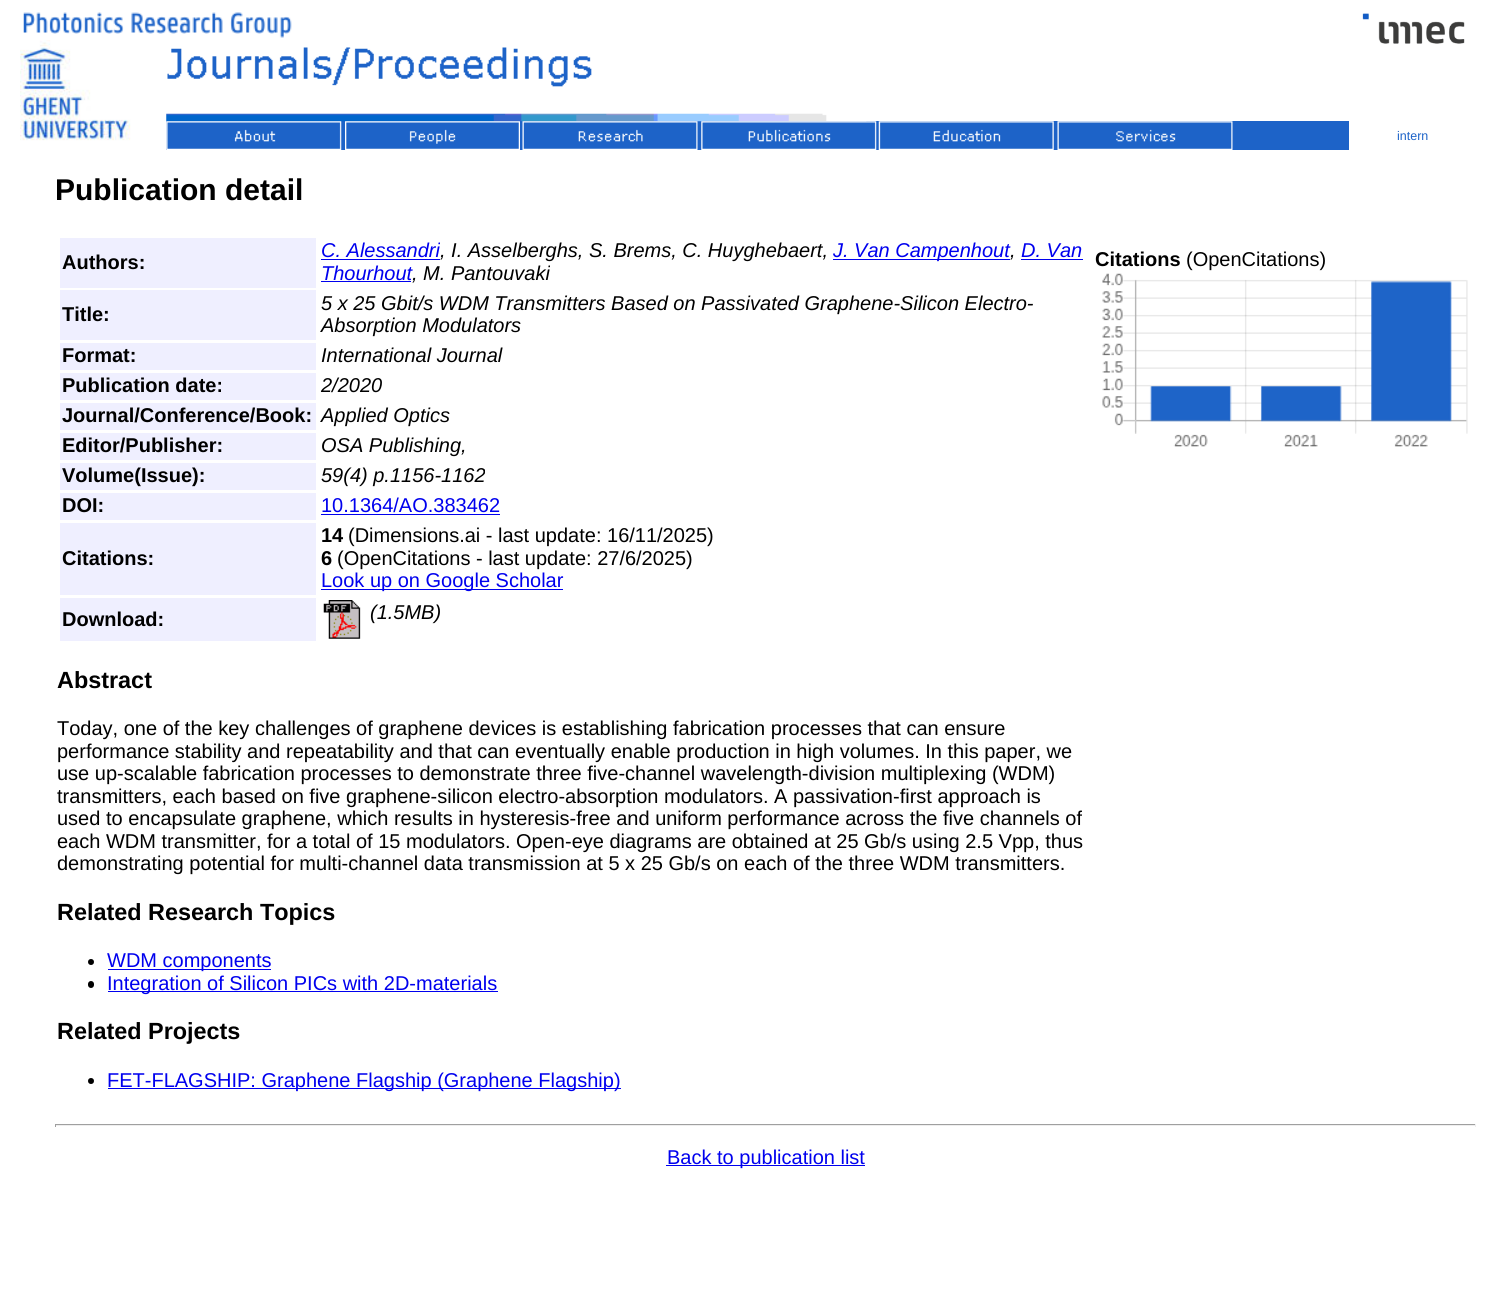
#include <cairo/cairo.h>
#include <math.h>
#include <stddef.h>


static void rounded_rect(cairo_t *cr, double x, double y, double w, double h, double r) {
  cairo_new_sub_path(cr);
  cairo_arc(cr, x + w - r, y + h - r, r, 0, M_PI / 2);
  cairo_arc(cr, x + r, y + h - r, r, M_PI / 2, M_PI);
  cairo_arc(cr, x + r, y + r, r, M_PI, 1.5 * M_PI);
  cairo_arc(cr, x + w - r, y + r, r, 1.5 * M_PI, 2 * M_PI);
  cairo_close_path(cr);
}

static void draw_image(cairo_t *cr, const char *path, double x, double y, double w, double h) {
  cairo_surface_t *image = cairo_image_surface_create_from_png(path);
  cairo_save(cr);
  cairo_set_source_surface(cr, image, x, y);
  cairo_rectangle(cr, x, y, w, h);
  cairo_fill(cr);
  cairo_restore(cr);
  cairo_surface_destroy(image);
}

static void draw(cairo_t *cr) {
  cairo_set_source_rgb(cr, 1, 1, 1);
  cairo_paint(cr);
  draw_image(cr, "images/1.png", 23, 12, 269, 26);
  cairo_set_source_rgb(cr, 29 / 255.0, 99 / 255.0, 200 / 255.0);
  cairo_rectangle(cr, 166, 121, 1183, 29);
  cairo_fill(cr);
  draw_image(cr, "images/2.png", 20, 40, 147, 109);
  draw_image(cr, "images/3.png", 166, 47, 701, 75);
  draw_image(cr, "images/4.png", 166, 121, 176, 29);
  draw_image(cr, "images/5.png", 345, 121, 175, 29);
  draw_image(cr, "images/6.png", 522, 121, 176, 29);
  draw_image(cr, "images/7.png", 701, 121, 176, 29);
  draw_image(cr, "images/8.png", 878, 121, 176, 29);
  draw_image(cr, "images/9.png", 1057, 121, 176, 29);
  draw_image(cr, "images/10.png", 1362, 13, 103, 31);
  cairo_set_source_rgb(cr, 239 / 255.0, 239 / 255.0, 1);
  cairo_rectangle(cr, 60, 238, 256, 50);
  cairo_fill(cr);
  cairo_set_source_rgb(cr, 0, 0, 238 / 255.0);
  cairo_rectangle(cr, 321, 259, 119, 1);
  cairo_fill(cr);
  cairo_rectangle(cr, 833, 259, 177, 1);
  cairo_fill(cr);
  cairo_rectangle(cr, 1021, 259, 62, 1);
  cairo_fill(cr);
  cairo_rectangle(cr, 321, 281, 90, 1);
  cairo_fill(cr);
  cairo_set_source_rgb(cr, 239 / 255.0, 239 / 255.0, 1);
  cairo_rectangle(cr, 60, 290, 256, 50);
  cairo_fill(cr);
  cairo_rectangle(cr, 60, 343, 256, 27);
  cairo_fill(cr);
  cairo_rectangle(cr, 60, 373, 256, 27);
  cairo_fill(cr);
  cairo_rectangle(cr, 60, 403, 256, 27);
  cairo_fill(cr);
  cairo_rectangle(cr, 60, 433, 256, 27);
  cairo_fill(cr);
  cairo_rectangle(cr, 60, 463, 256, 27);
  cairo_fill(cr);
  cairo_rectangle(cr, 60, 493, 256, 27);
  cairo_fill(cr);
  cairo_set_source_rgb(cr, 0, 0, 238 / 255.0);
  cairo_rectangle(cr, 321, 514, 179, 1);
  cairo_fill(cr);
  cairo_set_source_rgb(cr, 239 / 255.0, 239 / 255.0, 1);
  cairo_rectangle(cr, 60, 523, 256, 72);
  cairo_fill(cr);
  cairo_set_source_rgb(cr, 0, 0, 238 / 255.0);
  cairo_rectangle(cr, 321, 589, 242, 1);
  cairo_fill(cr);
  cairo_set_source_rgb(cr, 239 / 255.0, 239 / 255.0, 1);
  cairo_rectangle(cr, 60, 598, 256, 43);
  cairo_fill(cr);
  draw_image(cr, "images/11.png", 323, 600, 38, 39);
  cairo_set_source_rgb(cr, 0, 0, 0);
  cairo_arc(cr, 91, 962, 3, 0, 2 * M_PI);
  cairo_fill(cr);
  cairo_set_source_rgb(cr, 0, 0, 238 / 255.0);
  cairo_rectangle(cr, 108, 969, 163, 1);
  cairo_fill(cr);
  cairo_set_source_rgb(cr, 0, 0, 0);
  rounded_rect(cr, 88, 981, 6, 7, 3);
  cairo_fill(cr);
  cairo_set_source_rgb(cr, 0, 0, 238 / 255.0);
  cairo_rectangle(cr, 108, 991, 390, 1);
  cairo_fill(cr);
  cairo_set_source_rgb(cr, 0, 0, 0);
  cairo_arc(cr, 91, 1081, 3, 0, 2 * M_PI);
  cairo_fill(cr);
  cairo_set_source_rgb(cr, 0, 0, 238 / 255.0);
  cairo_rectangle(cr, 108, 1088, 513, 1);
  cairo_fill(cr);
  draw_image(cr, "images/12.png", 1102, 273, 366, 174);
  cairo_set_source_rgb(cr, 159 / 255.0, 159 / 255.0, 159 / 255.0);
  cairo_rectangle(cr, 55, 1124, 1421, 1);
  cairo_fill(cr);
  cairo_set_source_rgb(cr, 238 / 255.0, 238 / 255.0, 238 / 255.0);
  cairo_rectangle(cr, 1475, 1124, 1, 3);
  cairo_fill(cr);
  cairo_rectangle(cr, 55, 1125, 1421, 1);
  cairo_fill(cr);
  cairo_set_source_rgb(cr, 159 / 255.0, 159 / 255.0, 159 / 255.0);
  cairo_rectangle(cr, 55, 1124, 1, 3);
  cairo_fill(cr);
  cairo_set_source_rgb(cr, 0, 0, 238 / 255.0);
  cairo_rectangle(cr, 666, 1165, 199, 1);
  cairo_fill(cr);
  cairo_select_font_face(cr, "Liberation Sans", CAIRO_FONT_SLANT_NORMAL, CAIRO_FONT_WEIGHT_NORMAL);
  cairo_set_font_size(cr, 12.5);
  cairo_set_source_rgb(cr, 29 / 255.0, 99 / 255.0, 200 / 255.0);
  cairo_move_to(cr, 1397, 140);
  cairo_show_text(cr, "intern");
  cairo_select_font_face(cr, "Liberation Sans", CAIRO_FONT_SLANT_NORMAL, CAIRO_FONT_WEIGHT_BOLD);
  cairo_set_font_size(cr, 30);
  cairo_set_source_rgb(cr, 0, 0, 0);
  cairo_move_to(cr, 55, 200);
  cairo_show_text(cr, "Publication detail");
  cairo_set_font_size(cr, 20);
  cairo_move_to(cr, 62, 269);
  cairo_show_text(cr, "Authors:");
  cairo_select_font_face(cr, "Liberation Sans", CAIRO_FONT_SLANT_ITALIC, CAIRO_FONT_WEIGHT_NORMAL);
  cairo_set_source_rgb(cr, 0, 0, 238 / 255.0);
  cairo_move_to(cr, 321, 257);
  cairo_show_text(cr, "C. Alessandri");
  cairo_set_source_rgb(cr, 0, 0, 0);
  cairo_move_to(cr, 440, 257);
  cairo_show_text(cr, ", I. Asselberghs, S. Brems, C. Huyghebaert,");
  cairo_set_source_rgb(cr, 0, 0, 238 / 255.0);
  cairo_move_to(cr, 833, 257);
  cairo_show_text(cr, "J. Van Campenhout");
  cairo_set_source_rgb(cr, 0, 0, 0);
  cairo_move_to(cr, 1010, 257);
  cairo_show_text(cr, ",");
  cairo_set_source_rgb(cr, 0, 0, 238 / 255.0);
  cairo_move_to(cr, 1021, 257);
  cairo_show_text(cr, "D. Van");
  cairo_move_to(cr, 321, 280);
  cairo_show_text(cr, "Thourhout");
  cairo_set_source_rgb(cr, 0, 0, 0);
  cairo_move_to(cr, 412, 280);
  cairo_show_text(cr, ", M. Pantouvaki");
  cairo_select_font_face(cr, "Liberation Sans", CAIRO_FONT_SLANT_NORMAL, CAIRO_FONT_WEIGHT_BOLD);
  cairo_move_to(cr, 62, 321);
  cairo_show_text(cr, "Title:");
  cairo_select_font_face(cr, "Liberation Sans", CAIRO_FONT_SLANT_ITALIC, CAIRO_FONT_WEIGHT_NORMAL);
  cairo_move_to(cr, 321, 310);
  cairo_show_text(cr, "5 x 25 Gbit/s WDM Transmitters Based on Passivated Graphene-Silicon Electro-");
  cairo_move_to(cr, 321, 332);
  cairo_show_text(cr, "Absorption Modulators");
  cairo_select_font_face(cr, "Liberation Sans", CAIRO_FONT_SLANT_NORMAL, CAIRO_FONT_WEIGHT_BOLD);
  cairo_move_to(cr, 62, 362);
  cairo_show_text(cr, "Format:");
  cairo_select_font_face(cr, "Liberation Sans", CAIRO_FONT_SLANT_ITALIC, CAIRO_FONT_WEIGHT_NORMAL);
  cairo_move_to(cr, 321, 362);
  cairo_show_text(cr, "International Journal");
  cairo_select_font_face(cr, "Liberation Sans", CAIRO_FONT_SLANT_NORMAL, CAIRO_FONT_WEIGHT_BOLD);
  cairo_move_to(cr, 62, 392);
  cairo_show_text(cr, "Publication date:");
  cairo_select_font_face(cr, "Liberation Sans", CAIRO_FONT_SLANT_ITALIC, CAIRO_FONT_WEIGHT_NORMAL);
  cairo_move_to(cr, 321, 392);
  cairo_show_text(cr, "2/2020");
  cairo_select_font_face(cr, "Liberation Sans", CAIRO_FONT_SLANT_NORMAL, CAIRO_FONT_WEIGHT_BOLD);
  cairo_move_to(cr, 62, 422);
  cairo_show_text(cr, "Journal/Conference/Book:");
  cairo_select_font_face(cr, "Liberation Sans", CAIRO_FONT_SLANT_ITALIC, CAIRO_FONT_WEIGHT_NORMAL);
  cairo_move_to(cr, 321, 422);
  cairo_show_text(cr, "Applied Optics");
  cairo_select_font_face(cr, "Liberation Sans", CAIRO_FONT_SLANT_NORMAL, CAIRO_FONT_WEIGHT_BOLD);
  cairo_move_to(cr, 62, 452);
  cairo_show_text(cr, "Editor/Publisher:");
  cairo_select_font_face(cr, "Liberation Sans", CAIRO_FONT_SLANT_ITALIC, CAIRO_FONT_WEIGHT_NORMAL);
  cairo_move_to(cr, 321, 452);
  cairo_show_text(cr, "OSA Publishing,");
  cairo_select_font_face(cr, "Liberation Sans", CAIRO_FONT_SLANT_NORMAL, CAIRO_FONT_WEIGHT_BOLD);
  cairo_move_to(cr, 62, 482);
  cairo_show_text(cr, "Volume(Issue):");
  cairo_select_font_face(cr, "Liberation Sans", CAIRO_FONT_SLANT_ITALIC, CAIRO_FONT_WEIGHT_NORMAL);
  cairo_move_to(cr, 321, 482);
  cairo_show_text(cr, "59(4) p.1156-1162");
  cairo_select_font_face(cr, "Liberation Sans", CAIRO_FONT_SLANT_NORMAL, CAIRO_FONT_WEIGHT_BOLD);
  cairo_move_to(cr, 62, 512);
  cairo_show_text(cr, "DOI:");
  cairo_select_font_face(cr, "Liberation Sans", CAIRO_FONT_SLANT_NORMAL, CAIRO_FONT_WEIGHT_NORMAL);
  cairo_set_source_rgb(cr, 0, 0, 238 / 255.0);
  cairo_move_to(cr, 321, 512);
  cairo_show_text(cr, "10.1364/AO.383462");
  cairo_select_font_face(cr, "Liberation Sans", CAIRO_FONT_SLANT_NORMAL, CAIRO_FONT_WEIGHT_BOLD);
  cairo_set_source_rgb(cr, 0, 0, 0);
  cairo_move_to(cr, 62, 565);
  cairo_show_text(cr, "Citations:");
  cairo_move_to(cr, 321, 542);
  cairo_show_text(cr, "14");
  cairo_select_font_face(cr, "Liberation Sans", CAIRO_FONT_SLANT_NORMAL, CAIRO_FONT_WEIGHT_NORMAL);
  cairo_move_to(cr, 348, 542);
  cairo_show_text(cr, "(Dimensions.ai - last update: 16/11/2025)");
  cairo_select_font_face(cr, "Liberation Sans", CAIRO_FONT_SLANT_NORMAL, CAIRO_FONT_WEIGHT_BOLD);
  cairo_move_to(cr, 321, 565);
  cairo_show_text(cr, "6");
  cairo_select_font_face(cr, "Liberation Sans", CAIRO_FONT_SLANT_NORMAL, CAIRO_FONT_WEIGHT_NORMAL);
  cairo_move_to(cr, 337, 565);
  cairo_show_text(cr, "(OpenCitations - last update: 27/6/2025)");
  cairo_set_source_rgb(cr, 0, 0, 238 / 255.0);
  cairo_move_to(cr, 321, 587);
  cairo_show_text(cr, "Look up on Google Scholar");
  cairo_select_font_face(cr, "Liberation Sans", CAIRO_FONT_SLANT_NORMAL, CAIRO_FONT_WEIGHT_BOLD);
  cairo_set_source_rgb(cr, 0, 0, 0);
  cairo_move_to(cr, 62, 626);
  cairo_show_text(cr, "Download:");
  cairo_select_font_face(cr, "Liberation Sans", CAIRO_FONT_SLANT_ITALIC, CAIRO_FONT_WEIGHT_NORMAL);
  cairo_move_to(cr, 370, 619);
  cairo_show_text(cr, "(1.5MB)");
  cairo_select_font_face(cr, "Liberation Sans", CAIRO_FONT_SLANT_NORMAL, CAIRO_FONT_WEIGHT_BOLD);
  cairo_set_font_size(cr, 23.4);
  cairo_move_to(cr, 57, 688);
  cairo_show_text(cr, "Abstract");
  cairo_select_font_face(cr, "Liberation Sans", CAIRO_FONT_SLANT_NORMAL, CAIRO_FONT_WEIGHT_NORMAL);
  cairo_set_font_size(cr, 20);
  cairo_move_to(cr, 57, 735);
  cairo_show_text(cr, "Today, one of the key challenges of graphene devices is establishing fabrication processes that can ensure");
  cairo_move_to(cr, 57, 758);
  cairo_show_text(cr, "performance stability and repeatability and that can eventually enable production in high volumes. In this paper, we");
  cairo_move_to(cr, 57, 780);
  cairo_show_text(cr, "use up-scalable fabrication processes to demonstrate three five-channel wavelength-division multiplexing (WDM)");
  cairo_move_to(cr, 57, 803);
  cairo_show_text(cr, "transmitters, each based on five graphene-silicon electro-absorption modulators. A passivation-first approach is");
  cairo_move_to(cr, 57, 825);
  cairo_show_text(cr, "used to encapsulate graphene, which results in hysteresis-free and uniform performance across the five channels of");
  cairo_move_to(cr, 57, 848);
  cairo_show_text(cr, "each WDM transmitter, for a total of 15 modulators. Open-eye diagrams are obtained at 25 Gb/s using 2.5 Vpp, thus");
  cairo_move_to(cr, 57, 870);
  cairo_show_text(cr, "demonstrating potential for multi-channel data transmission at 5 x 25 Gb/s on each of the three WDM transmitters.");
  cairo_select_font_face(cr, "Liberation Sans", CAIRO_FONT_SLANT_NORMAL, CAIRO_FONT_WEIGHT_BOLD);
  cairo_set_font_size(cr, 23.4);
  cairo_move_to(cr, 57, 920);
  cairo_show_text(cr, "Related Research Topics");
  cairo_select_font_face(cr, "Liberation Sans", CAIRO_FONT_SLANT_NORMAL, CAIRO_FONT_WEIGHT_NORMAL);
  cairo_set_font_size(cr, 20);
  cairo_set_source_rgb(cr, 0, 0, 238 / 255.0);
  cairo_move_to(cr, 107, 967);
  cairo_show_text(cr, "WDM components");
  cairo_move_to(cr, 107, 990);
  cairo_show_text(cr, "Integration of Silicon PICs with 2D-materials");
  cairo_select_font_face(cr, "Liberation Sans", CAIRO_FONT_SLANT_NORMAL, CAIRO_FONT_WEIGHT_BOLD);
  cairo_set_font_size(cr, 23.4);
  cairo_set_source_rgb(cr, 0, 0, 0);
  cairo_move_to(cr, 57, 1039);
  cairo_show_text(cr, "Related Projects");
  cairo_select_font_face(cr, "Liberation Sans", CAIRO_FONT_SLANT_NORMAL, CAIRO_FONT_WEIGHT_NORMAL);
  cairo_set_font_size(cr, 20);
  cairo_set_source_rgb(cr, 0, 0, 238 / 255.0);
  cairo_move_to(cr, 107, 1087);
  cairo_show_text(cr, "FET-FLAGSHIP: Graphene Flagship (Graphene Flagship)");
  cairo_select_font_face(cr, "Liberation Sans", CAIRO_FONT_SLANT_NORMAL, CAIRO_FONT_WEIGHT_BOLD);
  cairo_set_source_rgb(cr, 0, 0, 0);
  cairo_move_to(cr, 1095, 266);
  cairo_show_text(cr, "Citations");
  cairo_select_font_face(cr, "Liberation Sans", CAIRO_FONT_SLANT_NORMAL, CAIRO_FONT_WEIGHT_NORMAL);
  cairo_move_to(cr, 1186, 266);
  cairo_show_text(cr, "(OpenCitations)");
  cairo_set_source_rgb(cr, 0, 0, 238 / 255.0);
  cairo_move_to(cr, 667, 1164);
  cairo_show_text(cr, "Back to publication list");
}

int main(void) {
  cairo_surface_t *surface = cairo_image_surface_create(CAIRO_FORMAT_RGB24, 1486, 1304);
  cairo_t *cr = cairo_create(surface);
  cairo_font_options_t *options = cairo_font_options_create();
  cairo_font_options_set_hint_metrics(options, CAIRO_HINT_METRICS_OFF);
  cairo_font_options_set_hint_style(options, CAIRO_HINT_STYLE_NONE);
  cairo_set_font_options(cr, options);
  cairo_set_miter_limit(cr, 4);
  draw(cr);
  cairo_surface_write_to_png(surface, "out.png");
  cairo_font_options_destroy(options);
  cairo_destroy(cr);
  cairo_surface_destroy(surface);
  return 0;
}
